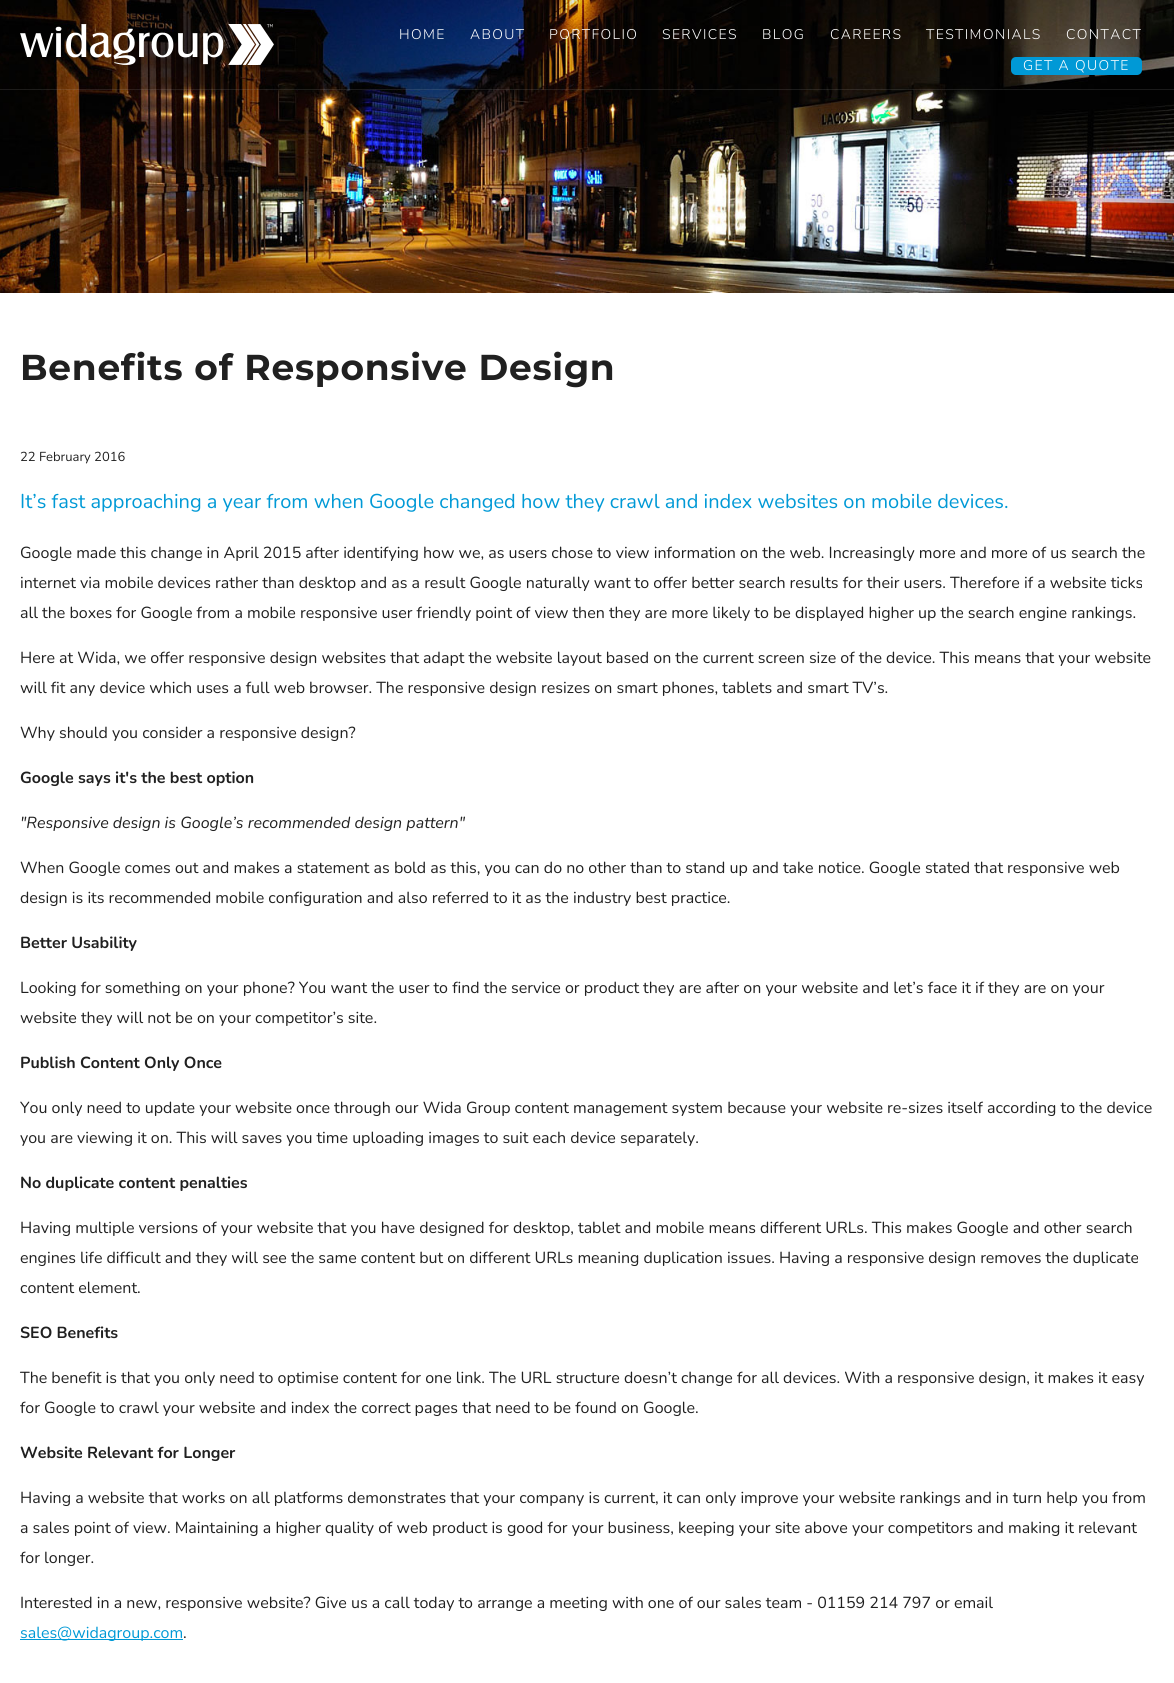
#include <cairo/cairo.h>
#include <math.h>
#include <stddef.h>


static void draw_spaced(cairo_t *cr, double x, double y, const char *s, double letter, double word) {
  cairo_move_to(cr, x, y);
  while (*s) {
    char ch[5] = {0};
    int n = 0;
    do ch[n++] = *s++; while ((*s & 0xC0) == 0x80);
    cairo_show_text(cr, ch);
    cairo_rel_move_to(cr, letter + word * (*ch == ' '), 0);
  }
}

static void rounded_rect(cairo_t *cr, double x, double y, double w, double h, double r) {
  cairo_new_sub_path(cr);
  cairo_arc(cr, x + w - r, y + h - r, r, 0, M_PI / 2);
  cairo_arc(cr, x + r, y + h - r, r, M_PI / 2, M_PI);
  cairo_arc(cr, x + r, y + r, r, M_PI, 1.5 * M_PI);
  cairo_arc(cr, x + w - r, y + r, r, 1.5 * M_PI, 2 * M_PI);
  cairo_close_path(cr);
}

static void draw_image(cairo_t *cr, const char *path, double x, double y, double w, double h) {
  cairo_surface_t *image = cairo_image_surface_create_from_png(path);
  cairo_save(cr);
  cairo_set_source_surface(cr, image, x, y);
  cairo_rectangle(cr, x, y, w, h);
  cairo_fill(cr);
  cairo_restore(cr);
  cairo_surface_destroy(image);
}

static void draw(cairo_t *cr) {
  cairo_set_source_rgb(cr, 1, 1, 1);
  cairo_paint(cr);
  draw_image(cr, "images/2.png", 0, 0, 1174, 293);
  cairo_set_source_rgba(cr, 0, 0, 0, 0.1);
  cairo_rectangle(cr, 0, 0, 1174, 90);
  cairo_fill(cr);
  cairo_set_source_rgba(cr, 1, 1, 1, 0.1);
  cairo_rectangle(cr, 0, 89, 1174, 1);
  cairo_fill(cr);
  draw_image(cr, "images/1.png", 20, 24, 254, 41);
  cairo_set_source_rgb(cr, 0, 153 / 255.0, 214 / 255.0);
  rounded_rect(cr, 1011, 57, 131, 18, 5);
  cairo_fill(cr);
  cairo_rectangle(cr, 20, 1639, 163, 1);
  cairo_fill(cr);
  cairo_select_font_face(cr, "Nunito Light", CAIRO_FONT_SLANT_NORMAL, CAIRO_FONT_WEIGHT_NORMAL);
  cairo_set_font_size(cr, 14);
  cairo_set_source_rgb(cr, 1, 1, 1);
  draw_spaced(cr, 399, 39, "HOME", 1.4, 0);
  draw_spaced(cr, 470, 39, "ABOUT", 1.4, 0);
  draw_spaced(cr, 549, 39, "PORTFOLIO", 1.4, 0);
  draw_spaced(cr, 662, 39, "SERVICES", 1.4, 0);
  draw_spaced(cr, 762, 39, "BLOG", 1.4, 0);
  draw_spaced(cr, 830, 39, "CAREERS", 1.4, 0);
  draw_spaced(cr, 926, 39, "TESTIMONIALS", 1.4, 0);
  draw_spaced(cr, 1066, 39, "CONTACT", 1.4, 0);
  draw_spaced(cr, 1023, 70, "GET A QUOTE", 1.4, 0);
  cairo_select_font_face(cr, "Montserrat", CAIRO_FONT_SLANT_NORMAL, CAIRO_FONT_WEIGHT_BOLD);
  cairo_set_font_size(cr, 36);
  cairo_set_source_rgb(cr, 32 / 255.0, 32 / 255.0, 32 / 255.0);
  draw_spaced(cr, 20, 380, "Benefits of Responsive Design", 0.75, 0);
  cairo_select_font_face(cr, "Nunito", CAIRO_FONT_SLANT_NORMAL, CAIRO_FONT_WEIGHT_NORMAL);
  cairo_set_font_size(cr, 13);
  cairo_move_to(cr, 20, 461);
  cairo_show_text(cr, "22 February 2016");
  cairo_set_font_size(cr, 20);
  cairo_set_source_rgb(cr, 0, 153 / 255.0, 214 / 255.0);
  cairo_move_to(cr, 20, 508);
  cairo_show_text(cr, "It’s fast approaching a year from when Google changed how they crawl and index websites on mobile devices.");
  cairo_set_font_size(cr, 16);
  cairo_set_source_rgb(cr, 32 / 255.0, 32 / 255.0, 32 / 255.0);
  cairo_move_to(cr, 20, 558);
  cairo_show_text(cr, "Google made this change in April 2015 after identifying how we, as users chose to view information on the web. Increasingly more and more of us search the");
  cairo_move_to(cr, 20, 588);
  cairo_show_text(cr, "internet via mobile devices rather than desktop and as a result Google naturally want to offer better search results for their users. Therefore if a website ticks");
  cairo_move_to(cr, 20, 618);
  cairo_show_text(cr, "all the boxes for Google from a mobile responsive user friendly point of view then they are more likely to be displayed higher up the search engine rankings.");
  cairo_move_to(cr, 20, 663);
  cairo_show_text(cr, "Here at Wida, we offer responsive design websites that adapt the website layout based on the current screen size of the device. This means that your website");
  cairo_move_to(cr, 20, 693);
  cairo_show_text(cr, "will fit any device which uses a full web browser. The responsive design resizes on smart phones, tablets and smart TV’s.");
  cairo_move_to(cr, 20, 738);
  cairo_show_text(cr, "Why should you consider a responsive design?");
  cairo_select_font_face(cr, "Nunito", CAIRO_FONT_SLANT_NORMAL, CAIRO_FONT_WEIGHT_BOLD);
  cairo_move_to(cr, 20, 783);
  cairo_show_text(cr, "Google says it's the best option");
  cairo_select_font_face(cr, "Nunito", CAIRO_FONT_SLANT_ITALIC, CAIRO_FONT_WEIGHT_NORMAL);
  cairo_move_to(cr, 20, 828);
  cairo_show_text(cr, "\"Responsive design is Google’s recommended design pattern\"");
  cairo_select_font_face(cr, "Nunito", CAIRO_FONT_SLANT_NORMAL, CAIRO_FONT_WEIGHT_NORMAL);
  cairo_move_to(cr, 20, 873);
  cairo_show_text(cr, "When Google comes out and makes a statement as bold as this, you can do no other than to stand up and take notice. Google stated that responsive web");
  cairo_move_to(cr, 20, 903);
  cairo_show_text(cr, "design is its recommended mobile configuration and also referred to it as the industry best practice.");
  cairo_select_font_face(cr, "Nunito", CAIRO_FONT_SLANT_NORMAL, CAIRO_FONT_WEIGHT_BOLD);
  cairo_move_to(cr, 20, 948);
  cairo_show_text(cr, "Better Usability");
  cairo_select_font_face(cr, "Nunito", CAIRO_FONT_SLANT_NORMAL, CAIRO_FONT_WEIGHT_NORMAL);
  cairo_move_to(cr, 20, 993);
  cairo_show_text(cr, "Looking for something on your phone? You want the user to find the service or product they are after on your website and let’s face it if they are on your");
  cairo_move_to(cr, 20, 1023);
  cairo_show_text(cr, "website they will not be on your competitor’s site.");
  cairo_select_font_face(cr, "Nunito", CAIRO_FONT_SLANT_NORMAL, CAIRO_FONT_WEIGHT_BOLD);
  cairo_move_to(cr, 20, 1068);
  cairo_show_text(cr, "Publish Content Only Once");
  cairo_select_font_face(cr, "Nunito", CAIRO_FONT_SLANT_NORMAL, CAIRO_FONT_WEIGHT_NORMAL);
  cairo_move_to(cr, 20, 1113);
  cairo_show_text(cr, "You only need to update your website once through our Wida Group content management system because your website re-sizes itself according to the device");
  cairo_move_to(cr, 20, 1143);
  cairo_show_text(cr, "you are viewing it on. This will saves you time uploading images to suit each device separately.");
  cairo_select_font_face(cr, "Nunito", CAIRO_FONT_SLANT_NORMAL, CAIRO_FONT_WEIGHT_BOLD);
  cairo_move_to(cr, 20, 1188);
  cairo_show_text(cr, "No duplicate content penalties");
  cairo_select_font_face(cr, "Nunito", CAIRO_FONT_SLANT_NORMAL, CAIRO_FONT_WEIGHT_NORMAL);
  cairo_move_to(cr, 20, 1233);
  cairo_show_text(cr, "Having multiple versions of your website that you have designed for desktop, tablet and mobile means different URLs. This makes Google and other search");
  cairo_move_to(cr, 20, 1263);
  cairo_show_text(cr, "engines life difficult and they will see the same content but on different URLs meaning duplication issues. Having a responsive design removes the duplicate");
  cairo_move_to(cr, 20, 1293);
  cairo_show_text(cr, "content element.");
  cairo_select_font_face(cr, "Nunito", CAIRO_FONT_SLANT_NORMAL, CAIRO_FONT_WEIGHT_BOLD);
  cairo_move_to(cr, 20, 1338);
  cairo_show_text(cr, "SEO Benefits");
  cairo_select_font_face(cr, "Nunito", CAIRO_FONT_SLANT_NORMAL, CAIRO_FONT_WEIGHT_NORMAL);
  cairo_move_to(cr, 20, 1383);
  cairo_show_text(cr, "The benefit is that you only need to optimise content for one link. The URL structure doesn’t change for all devices. With a responsive design, it makes it easy");
  cairo_move_to(cr, 20, 1413);
  cairo_show_text(cr, "for Google to crawl your website and index the correct pages that need to be found on Google.");
  cairo_select_font_face(cr, "Nunito", CAIRO_FONT_SLANT_NORMAL, CAIRO_FONT_WEIGHT_BOLD);
  cairo_move_to(cr, 20, 1458);
  cairo_show_text(cr, "Website Relevant for Longer");
  cairo_select_font_face(cr, "Nunito", CAIRO_FONT_SLANT_NORMAL, CAIRO_FONT_WEIGHT_NORMAL);
  cairo_move_to(cr, 20, 1503);
  cairo_show_text(cr, "Having a website that works on all platforms demonstrates that your company is current, it can only improve your website rankings and in turn help you from");
  cairo_move_to(cr, 20, 1533);
  cairo_show_text(cr, "a sales point of view. Maintaining a higher quality of web product is good for your business, keeping your site above your competitors and making it relevant");
  cairo_move_to(cr, 20, 1563);
  cairo_show_text(cr, "for longer.");
  cairo_move_to(cr, 20, 1608);
  cairo_show_text(cr, "Interested in a new, responsive website? Give us a call today to arrange a meeting with one of our sales team - 01159 214 797 or email");
  cairo_set_source_rgb(cr, 0, 153 / 255.0, 214 / 255.0);
  cairo_move_to(cr, 20, 1638);
  cairo_show_text(cr, "sales@widagroup.com");
  cairo_set_source_rgb(cr, 32 / 255.0, 32 / 255.0, 32 / 255.0);
  cairo_move_to(cr, 183, 1638);
  cairo_show_text(cr, ".");
}

int main(void) {
  cairo_surface_t *surface = cairo_image_surface_create(CAIRO_FORMAT_RGB24, 1174, 1683);
  cairo_t *cr = cairo_create(surface);
  cairo_font_options_t *options = cairo_font_options_create();
  cairo_font_options_set_hint_metrics(options, CAIRO_HINT_METRICS_OFF);
  cairo_font_options_set_hint_style(options, CAIRO_HINT_STYLE_NONE);
  cairo_set_font_options(cr, options);
  cairo_set_miter_limit(cr, 4);
  draw(cr);
  cairo_surface_write_to_png(surface, "out.png");
  cairo_font_options_destroy(options);
  cairo_destroy(cr);
  cairo_surface_destroy(surface);
  return 0;
}
